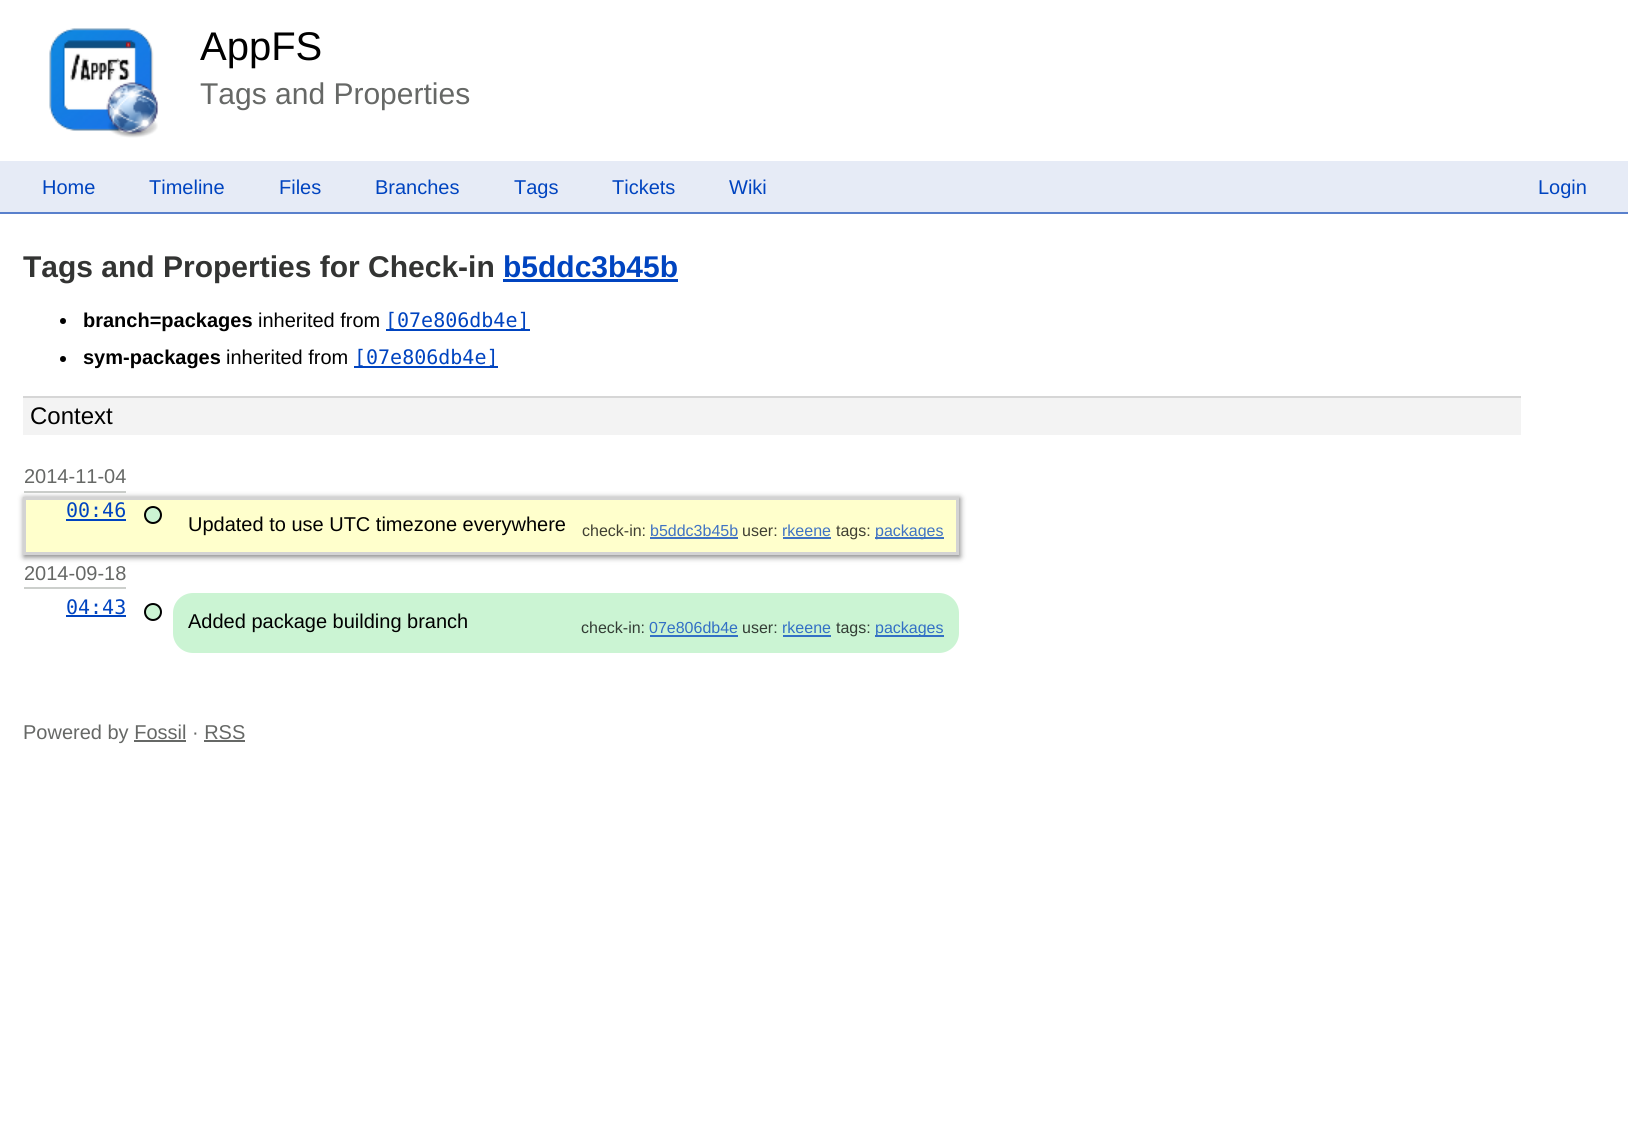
#include <cairo/cairo.h>
#include <math.h>
#include <stddef.h>


static void rounded_rect(cairo_t *cr, double x, double y, double w, double h, double r) {
  cairo_new_sub_path(cr);
  cairo_arc(cr, x + w - r, y + h - r, r, 0, M_PI / 2);
  cairo_arc(cr, x + r, y + h - r, r, M_PI / 2, M_PI);
  cairo_arc(cr, x + r, y + r, r, M_PI, 1.5 * M_PI);
  cairo_arc(cr, x + w - r, y + r, r, 1.5 * M_PI, 2 * M_PI);
  cairo_close_path(cr);
}

static void draw_shadow(cairo_t *cr, double x, double y, double w, double h, double r, double blur, double alpha) {
  cairo_push_group_with_content(cr, CAIRO_CONTENT_ALPHA);
  cairo_set_operator(cr, CAIRO_OPERATOR_SOURCE);
  for (int i = 15; i >= -15 && fmin(w, h) + blur * i / 3 > 0; i -= 2) {
    double e = blur * i / 6;
    cairo_set_source_rgba(cr, 0, 0, 0, alpha * erfc((i - 1) / 8.5) / 2);
    rounded_rect(cr, x - e, y - e, w + 2 * e, h + 2 * e, fmax(0, fmin(r + e + blur * .6, fmin(w, h) / 2 + e)));
    cairo_fill(cr);
  }
  cairo_pattern_t *soft = cairo_pop_group(cr);
  cairo_mask(cr, soft);
  cairo_pattern_destroy(soft);
}

static void draw_image(cairo_t *cr, const char *path, double x, double y, double w, double h) {
  cairo_surface_t *image = cairo_image_surface_create_from_png(path);
  cairo_save(cr);
  cairo_set_source_surface(cr, image, x, y);
  cairo_rectangle(cr, x, y, w, h);
  cairo_fill(cr);
  cairo_restore(cr);
  cairo_surface_destroy(image);
}

static void draw(cairo_t *cr) {
  cairo_set_source_rgb(cr, 1, 1, 1);
  cairo_paint(cr);
  draw_image(cr, "images/1.png", 49, 28, 110, 110);
  cairo_set_source_rgb(cr, 230 / 255.0, 235 / 255.0, 246 / 255.0);
  cairo_rectangle(cr, 0, 161, 1628, 51);
  cairo_fill(cr);
  cairo_set_source_rgb(cr, 89 / 255.0, 128 / 255.0, 204 / 255.0);
  cairo_rectangle(cr, 0, 212, 1628, 2);
  cairo_fill(cr);
  cairo_set_source_rgb(cr, 0, 68 / 255.0, 192 / 255.0);
  cairo_rectangle(cr, 503, 279, 175, 3);
  cairo_fill(cr);
  cairo_set_source_rgb(cr, 0, 0, 0);
  cairo_arc(cr, 63, 321, 3, 0, 2 * M_PI);
  cairo_fill(cr);
  cairo_set_source_rgb(cr, 0, 68 / 255.0, 192 / 255.0);
  cairo_rectangle(cr, 386, 329, 144, 2);
  cairo_fill(cr);
  cairo_set_source_rgb(cr, 0, 0, 0);
  cairo_arc(cr, 63, 359, 3, 0, 2 * M_PI);
  cairo_fill(cr);
  cairo_set_source_rgb(cr, 0, 68 / 255.0, 192 / 255.0);
  cairo_rectangle(cr, 354, 366, 144, 2);
  cairo_fill(cr);
  cairo_set_source_rgb(cr, 243 / 255.0, 243 / 255.0, 243 / 255.0);
  cairo_rectangle(cr, 23, 398, 1498, 37);
  cairo_fill(cr);
  cairo_set_source_rgb(cr, 214 / 255.0, 214 / 255.0, 214 / 255.0);
  cairo_rectangle(cr, 23, 396, 1498, 2);
  cairo_fill(cr);
  cairo_set_source_rgb(cr, 204 / 255.0, 207 / 255.0, 204 / 255.0);
  cairo_rectangle(cr, 24, 491, 102, 2);
  cairo_fill(cr);
  cairo_set_source_rgb(cr, 0, 0, 0);
  draw_shadow(cr, 24, 498, 936, 59, 0, 3, 0.5);
  cairo_set_source_rgb(cr, 1, 1, 204 / 255.0);
  cairo_rectangle(cr, 24.5, 498.5, 933, 55);
  cairo_fill_preserve(cr);
  cairo_set_source_rgb(cr, 211 / 255.0, 211 / 255.0, 211 / 255.0);
  cairo_set_line_width(cr, 3);
  cairo_stroke(cr);
  cairo_set_source_rgb(cr, 203 / 255.0, 244 / 255.0, 211 / 255.0);
  cairo_arc(cr, 153, 515, 8, 0, 2 * M_PI);
  cairo_fill_preserve(cr);
  cairo_set_source_rgb(cr, 0, 0, 0);
  cairo_set_line_width(cr, 2);
  cairo_stroke(cr);
  cairo_set_source_rgb(cr, 203 / 255.0, 244 / 255.0, 211 / 255.0);
  cairo_arc(cr, 153, 612, 8, 0, 2 * M_PI);
  cairo_fill_preserve(cr);
  cairo_set_source_rgb(cr, 0, 0, 0);
  cairo_stroke(cr);
  cairo_set_source_rgb(cr, 0, 68 / 255.0, 192 / 255.0);
  cairo_rectangle(cr, 66, 519, 60, 2);
  cairo_fill(cr);
  cairo_set_source_rgb(cr, 64 / 255.0, 115 / 255.0, 195 / 255.0);
  cairo_rectangle(cr, 650, 537, 88, 2);
  cairo_fill(cr);
  cairo_rectangle(cr, 783, 537, 48, 2);
  cairo_fill(cr);
  cairo_rectangle(cr, 875, 537, 69, 2);
  cairo_fill(cr);
  cairo_set_source_rgb(cr, 204 / 255.0, 207 / 255.0, 204 / 255.0);
  cairo_rectangle(cr, 24, 587, 102, 2);
  cairo_fill(cr);
  cairo_set_source_rgb(cr, 0, 68 / 255.0, 192 / 255.0);
  cairo_rectangle(cr, 66, 615, 60, 2);
  cairo_fill(cr);
  cairo_set_source_rgb(cr, 203 / 255.0, 244 / 255.0, 211 / 255.0);
  rounded_rect(cr, 173, 593, 786, 60, 20);
  cairo_fill(cr);
  cairo_set_source_rgb(cr, 51 / 255.0, 112 / 255.0, 197 / 255.0);
  cairo_rectangle(cr, 650, 635, 88, 2);
  cairo_fill(cr);
  cairo_rectangle(cr, 783, 635, 48, 2);
  cairo_fill(cr);
  cairo_rectangle(cr, 875, 635, 69, 2);
  cairo_fill(cr);
  cairo_set_source_rgb(cr, 102 / 255.0, 104 / 255.0, 102 / 255.0);
  cairo_rectangle(cr, 134, 740, 52, 2);
  cairo_fill(cr);
  cairo_rectangle(cr, 204, 740, 41, 2);
  cairo_fill(cr);
  cairo_select_font_face(cr, "Liberation Sans", CAIRO_FONT_SLANT_NORMAL, CAIRO_FONT_WEIGHT_NORMAL);
  cairo_set_font_size(cr, 40);
  cairo_set_source_rgb(cr, 0, 0, 0);
  cairo_move_to(cr, 200, 60);
  cairo_show_text(cr, "AppFS");
  cairo_set_font_size(cr, 30);
  cairo_set_source_rgb(cr, 102 / 255.0, 104 / 255.0, 102 / 255.0);
  cairo_move_to(cr, 200, 104);
  cairo_show_text(cr, "Tags and Properties");
  cairo_set_font_size(cr, 20);
  cairo_set_source_rgb(cr, 0, 68 / 255.0, 192 / 255.0);
  cairo_move_to(cr, 42, 194);
  cairo_show_text(cr, "Home");
  cairo_move_to(cr, 149, 194);
  cairo_show_text(cr, "Timeline");
  cairo_move_to(cr, 279, 194);
  cairo_show_text(cr, "Files");
  cairo_move_to(cr, 375, 194);
  cairo_show_text(cr, "Branches");
  cairo_move_to(cr, 514, 194);
  cairo_show_text(cr, "Tags");
  cairo_move_to(cr, 612, 194);
  cairo_show_text(cr, "Tickets");
  cairo_move_to(cr, 729, 194);
  cairo_show_text(cr, "Wiki");
  cairo_move_to(cr, 1538, 194);
  cairo_show_text(cr, "Login");
  cairo_select_font_face(cr, "Liberation Sans", CAIRO_FONT_SLANT_NORMAL, CAIRO_FONT_WEIGHT_BOLD);
  cairo_set_font_size(cr, 30);
  cairo_set_source_rgb(cr, 51 / 255.0, 52 / 255.0, 51 / 255.0);
  cairo_move_to(cr, 23, 277);
  cairo_show_text(cr, "Tags and Properties for Check-in");
  cairo_set_source_rgb(cr, 0, 68 / 255.0, 192 / 255.0);
  cairo_move_to(cr, 503, 277);
  cairo_show_text(cr, "b5ddc3b45b");
  cairo_set_font_size(cr, 20);
  cairo_set_source_rgb(cr, 0, 0, 0);
  cairo_move_to(cr, 83, 327);
  cairo_show_text(cr, "branch=packages");
  cairo_select_font_face(cr, "Liberation Sans", CAIRO_FONT_SLANT_NORMAL, CAIRO_FONT_WEIGHT_NORMAL);
  cairo_move_to(cr, 258, 327);
  cairo_show_text(cr, "inherited from");
  cairo_select_font_face(cr, "DejaVu Sans Mono", CAIRO_FONT_SLANT_NORMAL, CAIRO_FONT_WEIGHT_NORMAL);
  cairo_set_source_rgb(cr, 0, 68 / 255.0, 192 / 255.0);
  cairo_move_to(cr, 385, 327);
  cairo_show_text(cr, "[07e806db4e]");
  cairo_select_font_face(cr, "Liberation Sans", CAIRO_FONT_SLANT_NORMAL, CAIRO_FONT_WEIGHT_BOLD);
  cairo_set_source_rgb(cr, 0, 0, 0);
  cairo_move_to(cr, 83, 364);
  cairo_show_text(cr, "sym-packages");
  cairo_select_font_face(cr, "Liberation Sans", CAIRO_FONT_SLANT_NORMAL, CAIRO_FONT_WEIGHT_NORMAL);
  cairo_move_to(cr, 226, 364);
  cairo_show_text(cr, "inherited from");
  cairo_select_font_face(cr, "DejaVu Sans Mono", CAIRO_FONT_SLANT_NORMAL, CAIRO_FONT_WEIGHT_NORMAL);
  cairo_set_source_rgb(cr, 0, 68 / 255.0, 192 / 255.0);
  cairo_move_to(cr, 354, 364);
  cairo_show_text(cr, "[07e806db4e]");
  cairo_select_font_face(cr, "Liberation Sans", CAIRO_FONT_SLANT_NORMAL, CAIRO_FONT_WEIGHT_NORMAL);
  cairo_set_font_size(cr, 24);
  cairo_set_source_rgb(cr, 0, 0, 0);
  cairo_move_to(cr, 30, 424);
  cairo_show_text(cr, "Context");
  cairo_set_font_size(cr, 20);
  cairo_set_source_rgb(cr, 102 / 255.0, 104 / 255.0, 102 / 255.0);
  cairo_move_to(cr, 24, 483);
  cairo_show_text(cr, "2014-11-04");
  cairo_select_font_face(cr, "DejaVu Sans Mono", CAIRO_FONT_SLANT_NORMAL, CAIRO_FONT_WEIGHT_NORMAL);
  cairo_set_source_rgb(cr, 0, 68 / 255.0, 192 / 255.0);
  cairo_move_to(cr, 66, 517);
  cairo_show_text(cr, "00:46");
  cairo_select_font_face(cr, "Liberation Sans", CAIRO_FONT_SLANT_NORMAL, CAIRO_FONT_WEIGHT_NORMAL);
  cairo_set_source_rgb(cr, 0, 0, 0);
  cairo_move_to(cr, 188, 531);
  cairo_show_text(cr, "Updated to use UTC timezone everywhere");
  cairo_set_font_size(cr, 16);
  cairo_set_source_rgb(cr, 64 / 255.0, 64 / 255.0, 51 / 255.0);
  cairo_move_to(cr, 582, 536);
  cairo_show_text(cr, "check-in:");
  cairo_set_source_rgb(cr, 64 / 255.0, 115 / 255.0, 195 / 255.0);
  cairo_move_to(cr, 650, 536);
  cairo_show_text(cr, "b5ddc3b45b");
  cairo_set_source_rgb(cr, 64 / 255.0, 64 / 255.0, 51 / 255.0);
  cairo_move_to(cr, 742, 536);
  cairo_show_text(cr, "user:");
  cairo_set_source_rgb(cr, 64 / 255.0, 115 / 255.0, 195 / 255.0);
  cairo_move_to(cr, 782, 536);
  cairo_show_text(cr, "rkeene");
  cairo_set_source_rgb(cr, 64 / 255.0, 64 / 255.0, 51 / 255.0);
  cairo_move_to(cr, 836, 536);
  cairo_show_text(cr, "tags:");
  cairo_set_source_rgb(cr, 64 / 255.0, 115 / 255.0, 195 / 255.0);
  cairo_move_to(cr, 875, 536);
  cairo_show_text(cr, "packages");
  cairo_set_font_size(cr, 20);
  cairo_set_source_rgb(cr, 102 / 255.0, 104 / 255.0, 102 / 255.0);
  cairo_move_to(cr, 24, 580);
  cairo_show_text(cr, "2014-09-18");
  cairo_select_font_face(cr, "DejaVu Sans Mono", CAIRO_FONT_SLANT_NORMAL, CAIRO_FONT_WEIGHT_NORMAL);
  cairo_set_source_rgb(cr, 0, 68 / 255.0, 192 / 255.0);
  cairo_move_to(cr, 66, 614);
  cairo_show_text(cr, "04:43");
  cairo_select_font_face(cr, "Liberation Sans", CAIRO_FONT_SLANT_NORMAL, CAIRO_FONT_WEIGHT_NORMAL);
  cairo_set_source_rgb(cr, 0, 0, 0);
  cairo_move_to(cr, 188, 628);
  cairo_show_text(cr, "Added package building branch");
  cairo_set_font_size(cr, 16);
  cairo_set_source_rgb(cr, 51 / 255.0, 61 / 255.0, 53 / 255.0);
  cairo_move_to(cr, 581, 633);
  cairo_show_text(cr, "check-in:");
  cairo_set_source_rgb(cr, 51 / 255.0, 112 / 255.0, 197 / 255.0);
  cairo_move_to(cr, 649, 633);
  cairo_show_text(cr, "07e806db4e");
  cairo_set_source_rgb(cr, 51 / 255.0, 61 / 255.0, 53 / 255.0);
  cairo_move_to(cr, 742, 633);
  cairo_show_text(cr, "user:");
  cairo_set_source_rgb(cr, 51 / 255.0, 112 / 255.0, 197 / 255.0);
  cairo_move_to(cr, 782, 633);
  cairo_show_text(cr, "rkeene");
  cairo_set_source_rgb(cr, 51 / 255.0, 61 / 255.0, 53 / 255.0);
  cairo_move_to(cr, 836, 633);
  cairo_show_text(cr, "tags:");
  cairo_set_source_rgb(cr, 51 / 255.0, 112 / 255.0, 197 / 255.0);
  cairo_move_to(cr, 875, 633);
  cairo_show_text(cr, "packages");
  cairo_set_font_size(cr, 20);
  cairo_set_source_rgb(cr, 102 / 255.0, 104 / 255.0, 102 / 255.0);
  cairo_move_to(cr, 23, 739);
  cairo_show_text(cr, "Powered by Fossil · RSS");
}

int main(void) {
  cairo_surface_t *surface = cairo_image_surface_create(CAIRO_FORMAT_RGB24, 1628, 1139);
  cairo_t *cr = cairo_create(surface);
  cairo_font_options_t *options = cairo_font_options_create();
  cairo_font_options_set_hint_metrics(options, CAIRO_HINT_METRICS_OFF);
  cairo_font_options_set_hint_style(options, CAIRO_HINT_STYLE_NONE);
  cairo_set_font_options(cr, options);
  cairo_set_miter_limit(cr, 4);
  draw(cr);
  cairo_surface_write_to_png(surface, "out.png");
  cairo_font_options_destroy(options);
  cairo_destroy(cr);
  cairo_surface_destroy(surface);
  return 0;
}
